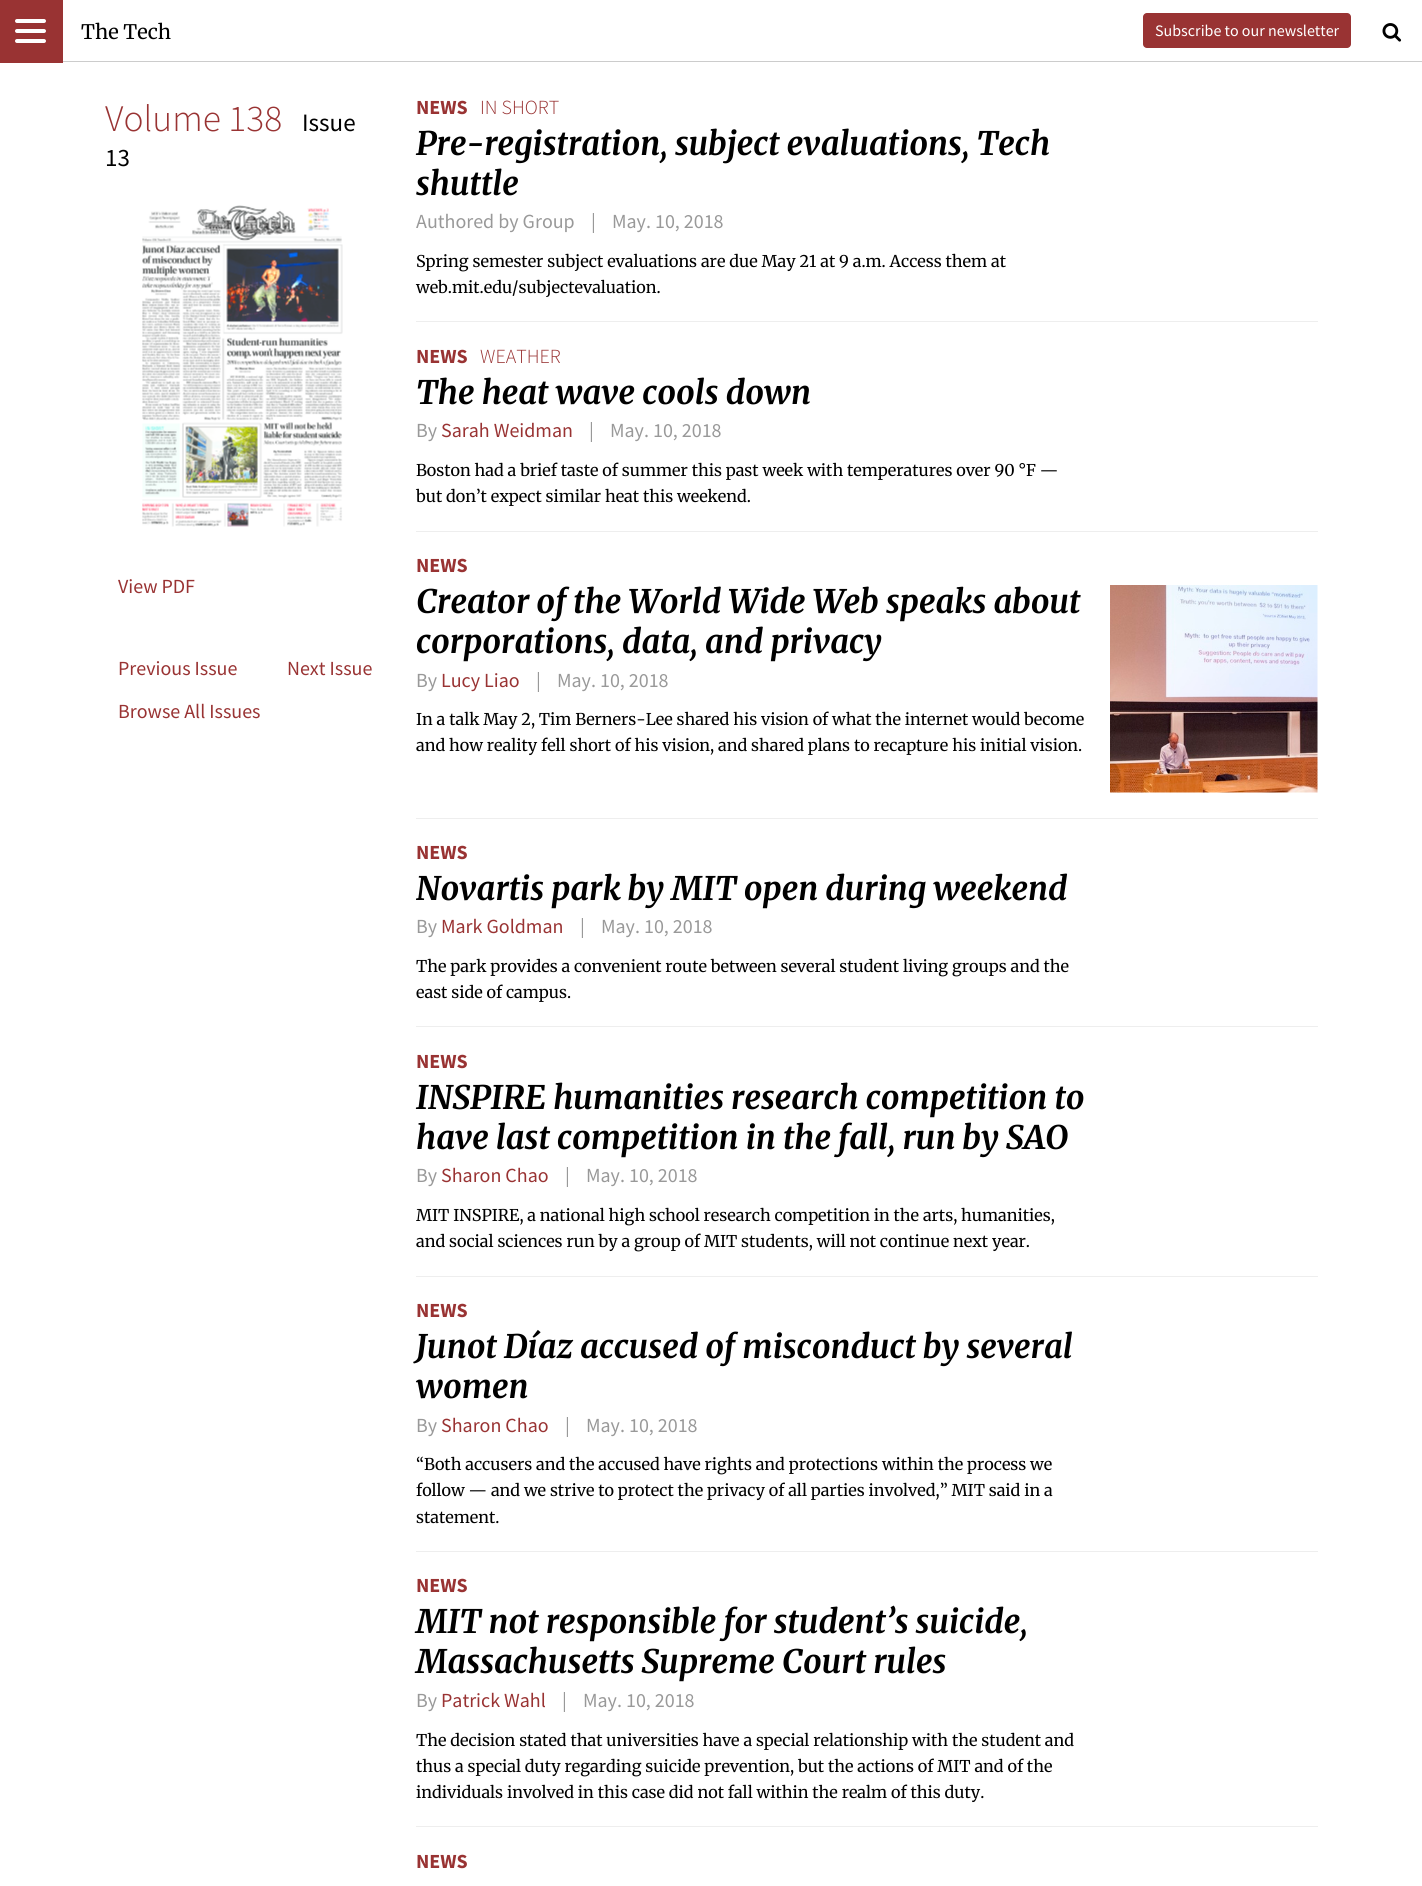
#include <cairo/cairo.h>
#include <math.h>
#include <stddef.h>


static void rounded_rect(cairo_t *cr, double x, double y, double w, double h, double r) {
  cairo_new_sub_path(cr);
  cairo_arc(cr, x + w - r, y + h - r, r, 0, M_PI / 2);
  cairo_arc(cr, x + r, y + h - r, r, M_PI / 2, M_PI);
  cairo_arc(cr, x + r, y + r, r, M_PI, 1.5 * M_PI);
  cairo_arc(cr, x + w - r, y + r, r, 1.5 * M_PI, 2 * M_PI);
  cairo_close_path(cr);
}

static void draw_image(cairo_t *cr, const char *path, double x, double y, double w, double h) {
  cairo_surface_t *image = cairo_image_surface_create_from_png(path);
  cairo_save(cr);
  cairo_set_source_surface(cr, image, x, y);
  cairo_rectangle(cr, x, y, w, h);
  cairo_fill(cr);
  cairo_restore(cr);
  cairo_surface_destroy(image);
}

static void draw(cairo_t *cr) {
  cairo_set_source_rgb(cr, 1, 1, 1);
  cairo_paint(cr);
  cairo_set_source_rgb(cr, 204 / 255.0, 204 / 255.0, 204 / 255.0);
  cairo_rectangle(cr, 63, 61, 1359, 1);
  cairo_fill(cr);
  cairo_set_source_rgb(cr, 153 / 255.0, 51 / 255.0, 51 / 255.0);
  cairo_rectangle(cr, 0, 0, 63, 63);
  cairo_fill(cr);
  cairo_set_source_rgb(cr, 1, 1, 1);
  rounded_rect(cr, 15, 19, 31, 4, 2);
  cairo_fill(cr);
  rounded_rect(cr, 15, 29, 31, 4, 2);
  cairo_fill(cr);
  rounded_rect(cr, 15, 39, 31, 4, 2);
  cairo_fill(cr);
  cairo_set_source_rgb(cr, 153 / 255.0, 51 / 255.0, 51 / 255.0);
  rounded_rect(cr, 1143, 13, 208, 35, 4);
  cairo_fill(cr);
  draw_image(cr, "images/1.png", 1382, 23, 20, 19);
  draw_image(cr, "images/2.png", 142, 205, 201, 322);
  cairo_set_source_rgb(cr, 238 / 255.0, 238 / 255.0, 238 / 255.0);
  cairo_rectangle(cr, 416, 321, 902, 1);
  cairo_fill(cr);
  cairo_rectangle(cr, 416, 531, 902, 1);
  cairo_fill(cr);
  draw_image(cr, "images/3.png", 1110, 585, 208, 208);
  cairo_rectangle(cr, 416, 818, 902, 1);
  cairo_fill(cr);
  cairo_rectangle(cr, 416, 1026, 902, 1);
  cairo_fill(cr);
  cairo_rectangle(cr, 416, 1276, 902, 1);
  cairo_fill(cr);
  cairo_rectangle(cr, 416, 1551, 902, 1);
  cairo_fill(cr);
  cairo_rectangle(cr, 416, 1826, 902, 1);
  cairo_fill(cr);
  cairo_select_font_face(cr, "Merriweather", CAIRO_FONT_SLANT_NORMAL, CAIRO_FONT_WEIGHT_NORMAL);
  cairo_set_font_size(cr, 20);
  cairo_set_source_rgb(cr, 0, 0, 0);
  cairo_move_to(cr, 81, 39);
  cairo_show_text(cr, "The Tech");
  cairo_select_font_face(cr, "Source Sans Pro", CAIRO_FONT_SLANT_NORMAL, CAIRO_FONT_WEIGHT_NORMAL);
  cairo_set_font_size(cr, 16);
  cairo_set_source_rgb(cr, 1, 1, 1);
  cairo_move_to(cr, 1155, 36);
  cairo_show_text(cr, "Subscribe to our newsletter");
  cairo_select_font_face(cr, "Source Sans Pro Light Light", CAIRO_FONT_SLANT_NORMAL, CAIRO_FONT_WEIGHT_NORMAL);
  cairo_set_font_size(cr, 37.5);
  cairo_set_source_rgb(cr, 153 / 255.0, 51 / 255.0, 51 / 255.0);
  cairo_move_to(cr, 105, 131);
  cairo_show_text(cr, "Volume 138");
  cairo_select_font_face(cr, "Source Sans Pro", CAIRO_FONT_SLANT_NORMAL, CAIRO_FONT_WEIGHT_NORMAL);
  cairo_set_font_size(cr, 25);
  cairo_set_source_rgb(cr, 0, 0, 0);
  cairo_move_to(cr, 302, 131);
  cairo_show_text(cr, "Issue");
  cairo_move_to(cr, 105, 166);
  cairo_show_text(cr, "13");
  cairo_set_font_size(cr, 20);
  cairo_set_source_rgb(cr, 153 / 255.0, 51 / 255.0, 51 / 255.0);
  cairo_move_to(cr, 118, 593);
  cairo_show_text(cr, "View PDF");
  cairo_move_to(cr, 118, 675);
  cairo_show_text(cr, "Previous Issue");
  cairo_move_to(cr, 287, 675);
  cairo_show_text(cr, "Next Issue");
  cairo_move_to(cr, 118, 718);
  cairo_show_text(cr, "Browse All Issues");
  cairo_select_font_face(cr, "Source Sans Pro", CAIRO_FONT_SLANT_NORMAL, CAIRO_FONT_WEIGHT_BOLD);
  cairo_move_to(cr, 416, 114);
  cairo_show_text(cr, "NEWS");
  cairo_select_font_face(cr, "Source Sans Pro Light Light", CAIRO_FONT_SLANT_NORMAL, CAIRO_FONT_WEIGHT_NORMAL);
  cairo_move_to(cr, 480, 114);
  cairo_show_text(cr, "IN SHORT");
  cairo_select_font_face(cr, "Merriweather", CAIRO_FONT_SLANT_ITALIC, CAIRO_FONT_WEIGHT_BOLD);
  cairo_set_font_size(cr, 32.4);
  cairo_set_source_rgb(cr, 0, 0, 0);
  cairo_move_to(cr, 416, 155);
  cairo_show_text(cr, "Pre-registration, subject evaluations, Tech");
  cairo_move_to(cr, 416, 195);
  cairo_show_text(cr, "shuttle");
  cairo_select_font_face(cr, "Source Sans Pro", CAIRO_FONT_SLANT_NORMAL, CAIRO_FONT_WEIGHT_NORMAL);
  cairo_set_font_size(cr, 20);
  cairo_set_source_rgb(cr, 153 / 255.0, 153 / 255.0, 153 / 255.0);
  cairo_move_to(cr, 416, 228);
  cairo_show_text(cr, "Authored by Group");
  cairo_move_to(cr, 591, 228);
  cairo_show_text(cr, "|");
  cairo_move_to(cr, 612, 228);
  cairo_show_text(cr, "May. 10, 2018");
  cairo_select_font_face(cr, "Merriweather", CAIRO_FONT_SLANT_NORMAL, CAIRO_FONT_WEIGHT_NORMAL);
  cairo_set_font_size(cr, 16.2);
  cairo_set_source_rgb(cr, 0, 0, 0);
  cairo_move_to(cr, 416, 267);
  cairo_show_text(cr, "Spring semester subject evaluations are due May 21 at 9 a.m. Access them at");
  cairo_move_to(cr, 416, 293);
  cairo_show_text(cr, "web.mit.edu/subjectevaluation.");
  cairo_select_font_face(cr, "Source Sans Pro", CAIRO_FONT_SLANT_NORMAL, CAIRO_FONT_WEIGHT_BOLD);
  cairo_set_font_size(cr, 20);
  cairo_set_source_rgb(cr, 153 / 255.0, 51 / 255.0, 51 / 255.0);
  cairo_move_to(cr, 416, 363);
  cairo_show_text(cr, "NEWS");
  cairo_select_font_face(cr, "Source Sans Pro Light Light", CAIRO_FONT_SLANT_NORMAL, CAIRO_FONT_WEIGHT_NORMAL);
  cairo_move_to(cr, 480, 363);
  cairo_show_text(cr, "WEATHER");
  cairo_select_font_face(cr, "Merriweather", CAIRO_FONT_SLANT_ITALIC, CAIRO_FONT_WEIGHT_BOLD);
  cairo_set_font_size(cr, 32.4);
  cairo_set_source_rgb(cr, 0, 0, 0);
  cairo_move_to(cr, 416, 404);
  cairo_show_text(cr, "The heat wave cools down");
  cairo_select_font_face(cr, "Source Sans Pro", CAIRO_FONT_SLANT_NORMAL, CAIRO_FONT_WEIGHT_NORMAL);
  cairo_set_font_size(cr, 20);
  cairo_set_source_rgb(cr, 153 / 255.0, 153 / 255.0, 153 / 255.0);
  cairo_move_to(cr, 416, 437);
  cairo_show_text(cr, "By");
  cairo_set_source_rgb(cr, 153 / 255.0, 51 / 255.0, 51 / 255.0);
  cairo_move_to(cr, 441, 437);
  cairo_show_text(cr, "Sarah Weidman");
  cairo_set_source_rgb(cr, 153 / 255.0, 153 / 255.0, 153 / 255.0);
  cairo_move_to(cr, 589, 437);
  cairo_show_text(cr, "|");
  cairo_move_to(cr, 610, 437);
  cairo_show_text(cr, "May. 10, 2018");
  cairo_select_font_face(cr, "Merriweather", CAIRO_FONT_SLANT_NORMAL, CAIRO_FONT_WEIGHT_NORMAL);
  cairo_set_font_size(cr, 16.2);
  cairo_set_source_rgb(cr, 0, 0, 0);
  cairo_move_to(cr, 416, 476);
  cairo_show_text(cr, "Boston had a brief taste of summer this past week with temperatures over 90 °F —");
  cairo_move_to(cr, 416, 502);
  cairo_show_text(cr, "but don’t expect similar heat this weekend.");
  cairo_select_font_face(cr, "Source Sans Pro", CAIRO_FONT_SLANT_NORMAL, CAIRO_FONT_WEIGHT_BOLD);
  cairo_set_font_size(cr, 20);
  cairo_set_source_rgb(cr, 153 / 255.0, 51 / 255.0, 51 / 255.0);
  cairo_move_to(cr, 416, 572);
  cairo_show_text(cr, "NEWS");
  cairo_select_font_face(cr, "Merriweather", CAIRO_FONT_SLANT_ITALIC, CAIRO_FONT_WEIGHT_BOLD);
  cairo_set_font_size(cr, 32.4);
  cairo_set_source_rgb(cr, 0, 0, 0);
  cairo_move_to(cr, 416, 613);
  cairo_show_text(cr, "Creator of the World Wide Web speaks about");
  cairo_move_to(cr, 416, 653);
  cairo_show_text(cr, "corporations, data, and privacy");
  cairo_select_font_face(cr, "Source Sans Pro", CAIRO_FONT_SLANT_NORMAL, CAIRO_FONT_WEIGHT_NORMAL);
  cairo_set_font_size(cr, 20);
  cairo_set_source_rgb(cr, 153 / 255.0, 153 / 255.0, 153 / 255.0);
  cairo_move_to(cr, 416, 687);
  cairo_show_text(cr, "By");
  cairo_set_source_rgb(cr, 153 / 255.0, 51 / 255.0, 51 / 255.0);
  cairo_move_to(cr, 441, 687);
  cairo_show_text(cr, "Lucy Liao");
  cairo_set_source_rgb(cr, 153 / 255.0, 153 / 255.0, 153 / 255.0);
  cairo_move_to(cr, 536, 687);
  cairo_show_text(cr, "|");
  cairo_move_to(cr, 557, 687);
  cairo_show_text(cr, "May. 10, 2018");
  cairo_select_font_face(cr, "Merriweather", CAIRO_FONT_SLANT_NORMAL, CAIRO_FONT_WEIGHT_NORMAL);
  cairo_set_font_size(cr, 16.2);
  cairo_set_source_rgb(cr, 0, 0, 0);
  cairo_move_to(cr, 416, 725);
  cairo_show_text(cr, "In a talk May 2, Tim Berners-Lee shared his vision of what the internet would become");
  cairo_move_to(cr, 416, 751);
  cairo_show_text(cr, "and how reality fell short of his vision, and shared plans to recapture his initial vision.");
  cairo_select_font_face(cr, "Source Sans Pro", CAIRO_FONT_SLANT_NORMAL, CAIRO_FONT_WEIGHT_BOLD);
  cairo_set_font_size(cr, 20);
  cairo_set_source_rgb(cr, 153 / 255.0, 51 / 255.0, 51 / 255.0);
  cairo_move_to(cr, 416, 859);
  cairo_show_text(cr, "NEWS");
  cairo_select_font_face(cr, "Merriweather", CAIRO_FONT_SLANT_ITALIC, CAIRO_FONT_WEIGHT_BOLD);
  cairo_set_font_size(cr, 32.4);
  cairo_set_source_rgb(cr, 0, 0, 0);
  cairo_move_to(cr, 416, 900);
  cairo_show_text(cr, "Novartis park by MIT open during weekend");
  cairo_select_font_face(cr, "Source Sans Pro", CAIRO_FONT_SLANT_NORMAL, CAIRO_FONT_WEIGHT_NORMAL);
  cairo_set_font_size(cr, 20);
  cairo_set_source_rgb(cr, 153 / 255.0, 153 / 255.0, 153 / 255.0);
  cairo_move_to(cr, 416, 933);
  cairo_show_text(cr, "By");
  cairo_set_source_rgb(cr, 153 / 255.0, 51 / 255.0, 51 / 255.0);
  cairo_move_to(cr, 441, 933);
  cairo_show_text(cr, "Mark Goldman");
  cairo_set_source_rgb(cr, 153 / 255.0, 153 / 255.0, 153 / 255.0);
  cairo_move_to(cr, 580, 933);
  cairo_show_text(cr, "|");
  cairo_move_to(cr, 601, 933);
  cairo_show_text(cr, "May. 10, 2018");
  cairo_select_font_face(cr, "Merriweather", CAIRO_FONT_SLANT_NORMAL, CAIRO_FONT_WEIGHT_NORMAL);
  cairo_set_font_size(cr, 16.2);
  cairo_set_source_rgb(cr, 0, 0, 0);
  cairo_move_to(cr, 416, 972);
  cairo_show_text(cr, "The park provides a convenient route between several student living groups and the");
  cairo_move_to(cr, 416, 998);
  cairo_show_text(cr, "east side of campus.");
  cairo_select_font_face(cr, "Source Sans Pro", CAIRO_FONT_SLANT_NORMAL, CAIRO_FONT_WEIGHT_BOLD);
  cairo_set_font_size(cr, 20);
  cairo_set_source_rgb(cr, 153 / 255.0, 51 / 255.0, 51 / 255.0);
  cairo_move_to(cr, 416, 1068);
  cairo_show_text(cr, "NEWS");
  cairo_select_font_face(cr, "Merriweather", CAIRO_FONT_SLANT_ITALIC, CAIRO_FONT_WEIGHT_BOLD);
  cairo_set_font_size(cr, 32.4);
  cairo_set_source_rgb(cr, 0, 0, 0);
  cairo_move_to(cr, 416, 1109);
  cairo_show_text(cr, "INSPIRE humanities research competition to");
  cairo_move_to(cr, 416, 1149);
  cairo_show_text(cr, "have last competition in the fall, run by SAO");
  cairo_select_font_face(cr, "Source Sans Pro", CAIRO_FONT_SLANT_NORMAL, CAIRO_FONT_WEIGHT_NORMAL);
  cairo_set_font_size(cr, 20);
  cairo_set_source_rgb(cr, 153 / 255.0, 153 / 255.0, 153 / 255.0);
  cairo_move_to(cr, 416, 1182);
  cairo_show_text(cr, "By");
  cairo_set_source_rgb(cr, 153 / 255.0, 51 / 255.0, 51 / 255.0);
  cairo_move_to(cr, 441, 1182);
  cairo_show_text(cr, "Sharon Chao");
  cairo_set_source_rgb(cr, 153 / 255.0, 153 / 255.0, 153 / 255.0);
  cairo_move_to(cr, 565, 1182);
  cairo_show_text(cr, "|");
  cairo_move_to(cr, 586, 1182);
  cairo_show_text(cr, "May. 10, 2018");
  cairo_select_font_face(cr, "Merriweather", CAIRO_FONT_SLANT_NORMAL, CAIRO_FONT_WEIGHT_NORMAL);
  cairo_set_font_size(cr, 16.2);
  cairo_set_source_rgb(cr, 0, 0, 0);
  cairo_move_to(cr, 416, 1221);
  cairo_show_text(cr, "MIT INSPIRE, a national high school research competition in the arts, humanities,");
  cairo_move_to(cr, 416, 1247);
  cairo_show_text(cr, "and social sciences run by a group of MIT students, will not continue next year.");
  cairo_select_font_face(cr, "Source Sans Pro", CAIRO_FONT_SLANT_NORMAL, CAIRO_FONT_WEIGHT_BOLD);
  cairo_set_font_size(cr, 20);
  cairo_set_source_rgb(cr, 153 / 255.0, 51 / 255.0, 51 / 255.0);
  cairo_move_to(cr, 416, 1317);
  cairo_show_text(cr, "NEWS");
  cairo_select_font_face(cr, "Merriweather", CAIRO_FONT_SLANT_ITALIC, CAIRO_FONT_WEIGHT_BOLD);
  cairo_set_font_size(cr, 32.4);
  cairo_set_source_rgb(cr, 0, 0, 0);
  cairo_move_to(cr, 416, 1358);
  cairo_show_text(cr, "Junot Díaz accused of misconduct by several");
  cairo_move_to(cr, 416, 1398);
  cairo_show_text(cr, "women");
  cairo_select_font_face(cr, "Source Sans Pro", CAIRO_FONT_SLANT_NORMAL, CAIRO_FONT_WEIGHT_NORMAL);
  cairo_set_font_size(cr, 20);
  cairo_set_source_rgb(cr, 153 / 255.0, 153 / 255.0, 153 / 255.0);
  cairo_move_to(cr, 416, 1432);
  cairo_show_text(cr, "By");
  cairo_set_source_rgb(cr, 153 / 255.0, 51 / 255.0, 51 / 255.0);
  cairo_move_to(cr, 441, 1432);
  cairo_show_text(cr, "Sharon Chao");
  cairo_set_source_rgb(cr, 153 / 255.0, 153 / 255.0, 153 / 255.0);
  cairo_move_to(cr, 565, 1432);
  cairo_show_text(cr, "|");
  cairo_move_to(cr, 586, 1432);
  cairo_show_text(cr, "May. 10, 2018");
  cairo_select_font_face(cr, "Merriweather", CAIRO_FONT_SLANT_NORMAL, CAIRO_FONT_WEIGHT_NORMAL);
  cairo_set_font_size(cr, 16.2);
  cairo_set_source_rgb(cr, 0, 0, 0);
  cairo_move_to(cr, 416, 1470);
  cairo_show_text(cr, "“Both accusers and the accused have rights and protections within the process we");
  cairo_move_to(cr, 416, 1496);
  cairo_show_text(cr, "follow — and we strive to protect the privacy of all parties involved,” MIT said in a");
  cairo_move_to(cr, 416, 1523);
  cairo_show_text(cr, "statement.");
  cairo_select_font_face(cr, "Source Sans Pro", CAIRO_FONT_SLANT_NORMAL, CAIRO_FONT_WEIGHT_BOLD);
  cairo_set_font_size(cr, 20);
  cairo_set_source_rgb(cr, 153 / 255.0, 51 / 255.0, 51 / 255.0);
  cairo_move_to(cr, 416, 1592);
  cairo_show_text(cr, "NEWS");
  cairo_select_font_face(cr, "Merriweather", CAIRO_FONT_SLANT_ITALIC, CAIRO_FONT_WEIGHT_BOLD);
  cairo_set_font_size(cr, 32.4);
  cairo_set_source_rgb(cr, 0, 0, 0);
  cairo_move_to(cr, 416, 1633);
  cairo_show_text(cr, "MIT not responsible for student’s suicide,");
  cairo_move_to(cr, 416, 1673);
  cairo_show_text(cr, "Massachusetts Supreme Court rules");
  cairo_select_font_face(cr, "Source Sans Pro", CAIRO_FONT_SLANT_NORMAL, CAIRO_FONT_WEIGHT_NORMAL);
  cairo_set_font_size(cr, 20);
  cairo_set_source_rgb(cr, 153 / 255.0, 153 / 255.0, 153 / 255.0);
  cairo_move_to(cr, 416, 1707);
  cairo_show_text(cr, "By");
  cairo_set_source_rgb(cr, 153 / 255.0, 51 / 255.0, 51 / 255.0);
  cairo_move_to(cr, 441, 1707);
  cairo_show_text(cr, "Patrick Wahl");
  cairo_set_source_rgb(cr, 153 / 255.0, 153 / 255.0, 153 / 255.0);
  cairo_move_to(cr, 562, 1707);
  cairo_show_text(cr, "|");
  cairo_move_to(cr, 583, 1707);
  cairo_show_text(cr, "May. 10, 2018");
  cairo_select_font_face(cr, "Merriweather", CAIRO_FONT_SLANT_NORMAL, CAIRO_FONT_WEIGHT_NORMAL);
  cairo_set_font_size(cr, 16.2);
  cairo_set_source_rgb(cr, 0, 0, 0);
  cairo_move_to(cr, 416, 1746);
  cairo_show_text(cr, "The decision stated that universities have a special relationship with the student and");
  cairo_move_to(cr, 416, 1772);
  cairo_show_text(cr, "thus a special duty regarding suicide prevention, but the actions of MIT and of the");
  cairo_move_to(cr, 416, 1798);
  cairo_show_text(cr, "individuals involved in this case did not fall within the realm of this duty.");
  cairo_select_font_face(cr, "Source Sans Pro", CAIRO_FONT_SLANT_NORMAL, CAIRO_FONT_WEIGHT_BOLD);
  cairo_set_font_size(cr, 20);
  cairo_set_source_rgb(cr, 153 / 255.0, 51 / 255.0, 51 / 255.0);
  cairo_move_to(cr, 416, 1868);
  cairo_show_text(cr, "NEWS");
}

int main(void) {
  cairo_surface_t *surface = cairo_image_surface_create(CAIRO_FORMAT_RGB24, 1422, 1886);
  cairo_t *cr = cairo_create(surface);
  cairo_font_options_t *options = cairo_font_options_create();
  cairo_font_options_set_hint_metrics(options, CAIRO_HINT_METRICS_OFF);
  cairo_font_options_set_hint_style(options, CAIRO_HINT_STYLE_NONE);
  cairo_set_font_options(cr, options);
  cairo_set_miter_limit(cr, 4);
  draw(cr);
  cairo_surface_write_to_png(surface, "out.png");
  cairo_font_options_destroy(options);
  cairo_destroy(cr);
  cairo_surface_destroy(surface);
  return 0;
}
